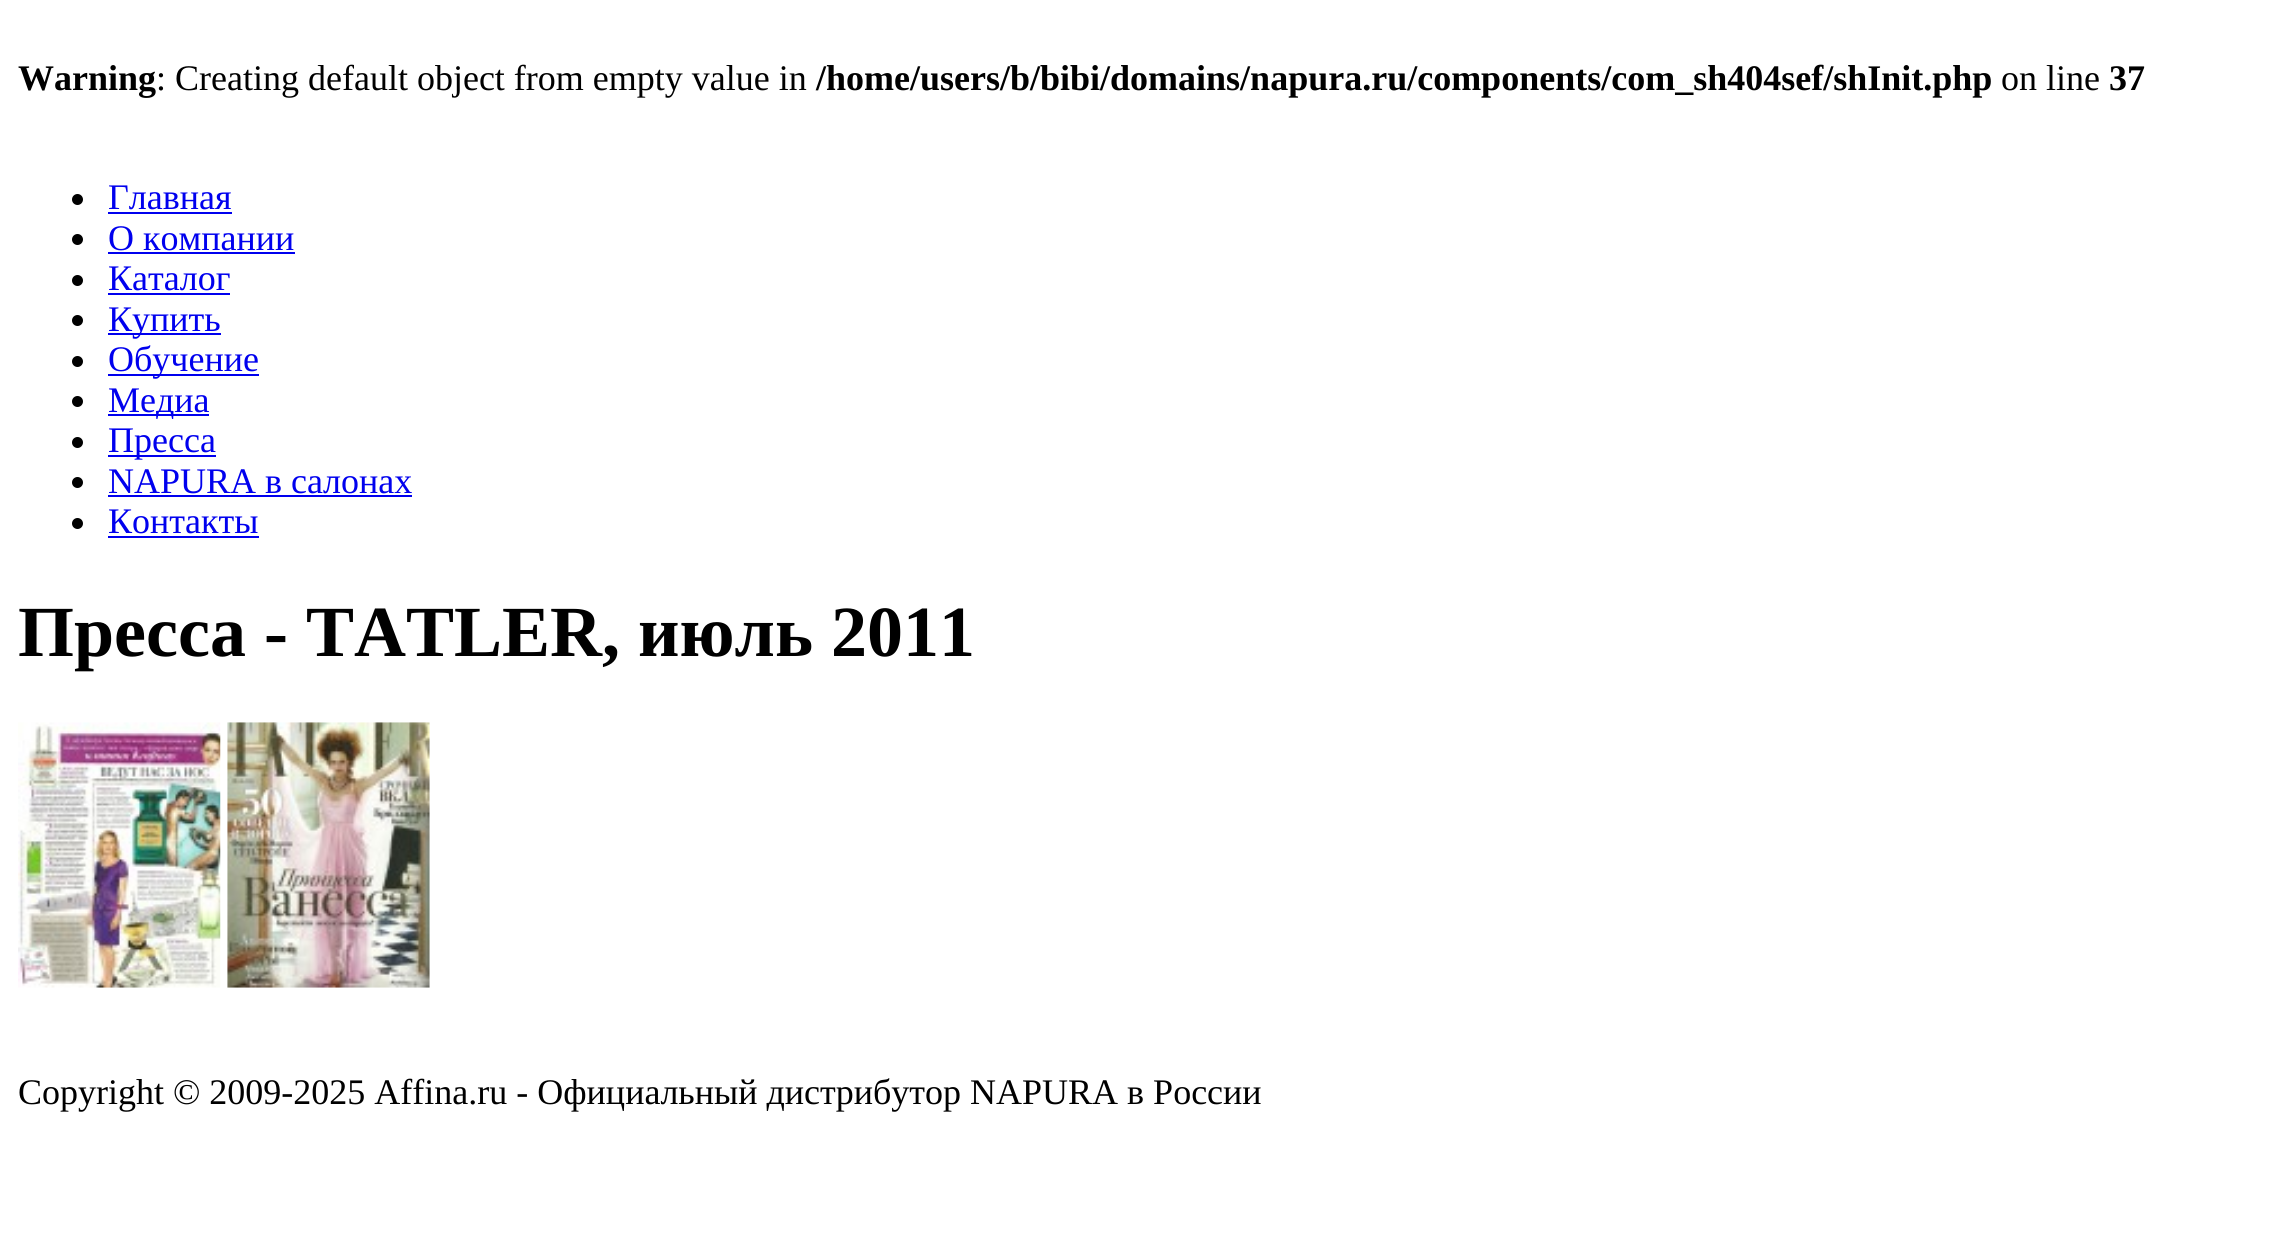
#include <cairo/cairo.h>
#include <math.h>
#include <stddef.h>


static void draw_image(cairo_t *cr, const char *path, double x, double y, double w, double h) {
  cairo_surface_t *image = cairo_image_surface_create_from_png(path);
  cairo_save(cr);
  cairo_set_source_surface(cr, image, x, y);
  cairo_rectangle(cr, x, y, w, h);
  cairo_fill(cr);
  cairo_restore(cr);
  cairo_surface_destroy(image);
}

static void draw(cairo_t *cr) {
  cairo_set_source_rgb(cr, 1, 1, 1);
  cairo_paint(cr);
  cairo_set_source_rgb(cr, 0, 0, 0);
  cairo_arc(cr, 77.5, 199.5, 5.5, 0, 2 * M_PI);
  cairo_fill(cr);
  cairo_set_source_rgb(cr, 0, 0, 238 / 255.0);
  cairo_rectangle(cr, 108, 212, 124, 2);
  cairo_fill(cr);
  cairo_set_source_rgb(cr, 0, 0, 0);
  cairo_arc(cr, 77.5, 239.5, 5.5, 0, 2 * M_PI);
  cairo_fill(cr);
  cairo_set_source_rgb(cr, 0, 0, 238 / 255.0);
  cairo_rectangle(cr, 108, 252, 187, 2);
  cairo_fill(cr);
  cairo_set_source_rgb(cr, 0, 0, 0);
  cairo_arc(cr, 77.5, 280.5, 5.5, 0, 2 * M_PI);
  cairo_fill(cr);
  cairo_set_source_rgb(cr, 0, 0, 238 / 255.0);
  cairo_rectangle(cr, 108, 293, 122, 2);
  cairo_fill(cr);
  cairo_set_source_rgb(cr, 0, 0, 0);
  cairo_arc(cr, 77.5, 320.5, 5.5, 0, 2 * M_PI);
  cairo_fill(cr);
  cairo_set_source_rgb(cr, 0, 0, 238 / 255.0);
  cairo_rectangle(cr, 108, 333, 113, 2);
  cairo_fill(cr);
  cairo_set_source_rgb(cr, 0, 0, 0);
  cairo_arc(cr, 77.5, 361.5, 5.5, 0, 2 * M_PI);
  cairo_fill(cr);
  cairo_set_source_rgb(cr, 0, 0, 238 / 255.0);
  cairo_rectangle(cr, 108, 374, 151, 2);
  cairo_fill(cr);
  cairo_set_source_rgb(cr, 0, 0, 0);
  cairo_arc(cr, 77.5, 401.5, 5.5, 0, 2 * M_PI);
  cairo_fill(cr);
  cairo_set_source_rgb(cr, 0, 0, 238 / 255.0);
  cairo_rectangle(cr, 108, 414, 101, 2);
  cairo_fill(cr);
  cairo_set_source_rgb(cr, 0, 0, 0);
  cairo_arc(cr, 77.5, 442.5, 5.5, 0, 2 * M_PI);
  cairo_fill(cr);
  cairo_set_source_rgb(cr, 0, 0, 238 / 255.0);
  cairo_rectangle(cr, 108, 455, 108, 2);
  cairo_fill(cr);
  cairo_set_source_rgb(cr, 0, 0, 0);
  cairo_arc(cr, 77.5, 482.5, 5.5, 0, 2 * M_PI);
  cairo_fill(cr);
  cairo_set_source_rgb(cr, 0, 0, 238 / 255.0);
  cairo_rectangle(cr, 108, 495, 304, 2);
  cairo_fill(cr);
  cairo_set_source_rgb(cr, 0, 0, 0);
  cairo_arc(cr, 77.5, 523.5, 5.5, 0, 2 * M_PI);
  cairo_fill(cr);
  cairo_set_source_rgb(cr, 0, 0, 238 / 255.0);
  cairo_rectangle(cr, 108, 536, 151, 2);
  cairo_fill(cr);
  draw_image(cr, "images/1.png", 18, 722, 203, 266);
  draw_image(cr, "images/2.png", 227, 722, 203, 266);
  cairo_select_font_face(cr, "Liberation Serif", CAIRO_FONT_SLANT_NORMAL, CAIRO_FONT_WEIGHT_BOLD);
  cairo_set_font_size(cr, 36);
  cairo_set_source_rgb(cr, 0, 0, 0);
  cairo_move_to(cr, 18, 90);
  cairo_show_text(cr, "Warning");
  cairo_select_font_face(cr, "Liberation Serif", CAIRO_FONT_SLANT_NORMAL, CAIRO_FONT_WEIGHT_NORMAL);
  cairo_move_to(cr, 156, 90);
  cairo_show_text(cr, ": Creating default object from empty value in");
  cairo_select_font_face(cr, "Liberation Serif", CAIRO_FONT_SLANT_NORMAL, CAIRO_FONT_WEIGHT_BOLD);
  cairo_move_to(cr, 816, 90);
  cairo_show_text(cr, "/home/users/b/bibi/domains/napura.ru/components/com_sh404sef/shInit.php");
  cairo_select_font_face(cr, "Liberation Serif", CAIRO_FONT_SLANT_NORMAL, CAIRO_FONT_WEIGHT_NORMAL);
  cairo_move_to(cr, 2001, 90);
  cairo_show_text(cr, "on line");
  cairo_select_font_face(cr, "Liberation Serif", CAIRO_FONT_SLANT_NORMAL, CAIRO_FONT_WEIGHT_BOLD);
  cairo_move_to(cr, 2109, 90);
  cairo_show_text(cr, "37");
  cairo_select_font_face(cr, "Liberation Serif", CAIRO_FONT_SLANT_NORMAL, CAIRO_FONT_WEIGHT_NORMAL);
  cairo_set_source_rgb(cr, 0, 0, 238 / 255.0);
  cairo_move_to(cr, 108, 209);
  cairo_show_text(cr, "Главная");
  cairo_move_to(cr, 108, 250);
  cairo_show_text(cr, "О компании");
  cairo_move_to(cr, 108, 290);
  cairo_show_text(cr, "Каталог");
  cairo_move_to(cr, 108, 331);
  cairo_show_text(cr, "Купить");
  cairo_move_to(cr, 108, 371);
  cairo_show_text(cr, "Обучение");
  cairo_move_to(cr, 108, 412);
  cairo_show_text(cr, "Медиа");
  cairo_move_to(cr, 108, 452);
  cairo_show_text(cr, "Пресса");
  cairo_move_to(cr, 108, 493);
  cairo_show_text(cr, "NAPURA в салонах");
  cairo_move_to(cr, 108, 533);
  cairo_show_text(cr, "Контакты");
  cairo_select_font_face(cr, "Liberation Serif", CAIRO_FONT_SLANT_NORMAL, CAIRO_FONT_WEIGHT_BOLD);
  cairo_set_font_size(cr, 72);
  cairo_set_source_rgb(cr, 0, 0, 0);
  cairo_move_to(cr, 18, 656);
  cairo_show_text(cr, "Пресса - TATLER, июль 2011");
  cairo_select_font_face(cr, "Liberation Serif", CAIRO_FONT_SLANT_NORMAL, CAIRO_FONT_WEIGHT_NORMAL);
  cairo_set_font_size(cr, 36);
  cairo_move_to(cr, 18, 1104);
  cairo_show_text(cr, "Copyright © 2009-2025 Affina.ru - Официальный дистрибутор NAPURA в России");
}

int main(void) {
  cairo_surface_t *surface = cairo_image_surface_create(CAIRO_FORMAT_RGB24, 2280, 1260);
  cairo_t *cr = cairo_create(surface);
  cairo_font_options_t *options = cairo_font_options_create();
  cairo_font_options_set_hint_metrics(options, CAIRO_HINT_METRICS_OFF);
  cairo_font_options_set_hint_style(options, CAIRO_HINT_STYLE_NONE);
  cairo_set_font_options(cr, options);
  cairo_set_miter_limit(cr, 4);
  draw(cr);
  cairo_surface_write_to_png(surface, "out.png");
  cairo_font_options_destroy(options);
  cairo_destroy(cr);
  cairo_surface_destroy(surface);
  return 0;
}
